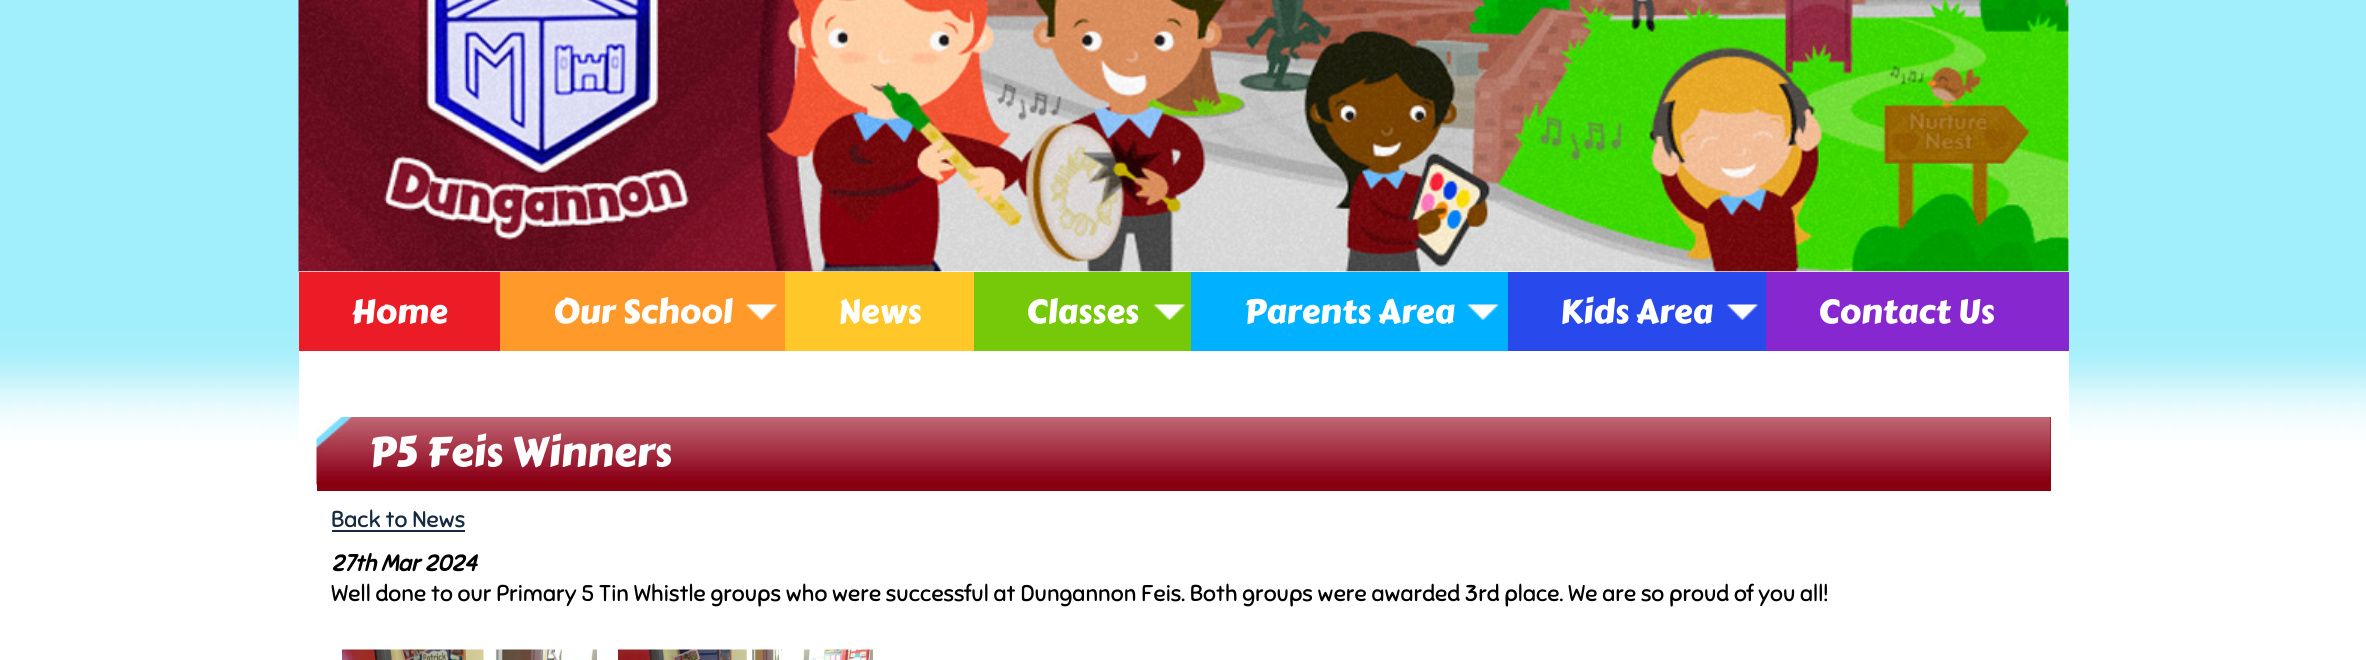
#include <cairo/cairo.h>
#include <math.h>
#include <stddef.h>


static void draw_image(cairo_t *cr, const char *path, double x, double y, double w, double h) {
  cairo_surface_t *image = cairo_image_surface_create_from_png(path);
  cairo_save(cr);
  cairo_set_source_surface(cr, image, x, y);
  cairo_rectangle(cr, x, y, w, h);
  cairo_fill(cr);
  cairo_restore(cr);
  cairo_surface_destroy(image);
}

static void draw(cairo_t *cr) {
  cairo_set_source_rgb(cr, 1, 1, 1);
  cairo_paint(cr);
  draw_image(cr, "images/1.png", 0, 0, 2366, 440);
  cairo_set_source_rgb(cr, 1, 1, 1);
  cairo_rectangle(cr, 299, 0, 1770, 272);
  cairo_fill(cr);
  draw_image(cr, "images/2.png", 298, 0, 1771, 272);
  cairo_set_source_rgb(cr, 135 / 255.0, 39 / 255.0, 207 / 255.0);
  cairo_rectangle(cr, 1766, 272, 303, 79);
  cairo_fill(cr);
  cairo_set_source_rgb(cr, 235 / 255.0, 28 / 255.0, 38 / 255.0);
  cairo_rectangle(cr, 299, 272, 201, 79);
  cairo_fill(cr);
  cairo_set_source_rgb(cr, 1, 153 / 255.0, 42 / 255.0);
  cairo_rectangle(cr, 500, 272, 285, 79);
  cairo_fill(cr);
  draw_image(cr, "images/3.png", 745, 304, 32, 16);
  cairo_set_source_rgb(cr, 1, 199 / 255.0, 40 / 255.0);
  cairo_rectangle(cr, 785, 272, 189, 79);
  cairo_fill(cr);
  cairo_set_source_rgb(cr, 118 / 255.0, 201 / 255.0, 9 / 255.0);
  cairo_rectangle(cr, 974, 272, 217, 79);
  cairo_fill(cr);
  draw_image(cr, "images/4.png", 1153, 304, 32, 16);
  cairo_set_source_rgb(cr, 0, 177 / 255.0, 1);
  cairo_rectangle(cr, 1191, 272, 317, 79);
  cairo_fill(cr);
  draw_image(cr, "images/5.png", 1467, 304, 32, 16);
  cairo_set_source_rgb(cr, 40 / 255.0, 73 / 255.0, 236 / 255.0);
  cairo_rectangle(cr, 1508, 272, 258, 79);
  cairo_fill(cr);
  draw_image(cr, "images/6.png", 1726, 304, 32, 16);
  cairo_set_source_rgb(cr, 1, 1, 1);
  cairo_rectangle(cr, 299, 351, 1770, 89);
  cairo_fill(cr);
  cairo_set_source_rgb(cr, 136 / 255.0, 1 / 255.0, 16 / 255.0);
  cairo_rectangle(cr, 317, 417, 1734, 74);
  cairo_fill(cr);
  draw_image(cr, "images/7.png", 316, 417, 1735, 68);
  cairo_set_source_rgb(cr, 21 / 255.0, 41 / 255.0, 65 / 255.0);
  cairo_rectangle(cr, 332, 530, 133, 2);
  cairo_fill(cr);
  draw_image(cr, "images/8.png", 342, 649, 255, 11);
  draw_image(cr, "images/9.png", 618, 649, 255, 11);
  cairo_select_font_face(cr, "Carter One", CAIRO_FONT_SLANT_NORMAL, CAIRO_FONT_WEIGHT_NORMAL);
  cairo_set_font_size(cr, 33.5);
  cairo_set_source_rgb(cr, 1, 1, 1);
  cairo_move_to(cr, 351, 323);
  cairo_show_text(cr, "Home");
  cairo_move_to(cr, 553, 323);
  cairo_show_text(cr, "Our School");
  cairo_move_to(cr, 838, 323);
  cairo_show_text(cr, "News");
  cairo_move_to(cr, 1026, 323);
  cairo_show_text(cr, "Classes");
  cairo_move_to(cr, 1244, 323);
  cairo_show_text(cr, "Parents Area");
  cairo_move_to(cr, 1560, 323);
  cairo_show_text(cr, "Kids Area");
  cairo_move_to(cr, 1818, 323);
  cairo_show_text(cr, "Contact Us");
  cairo_set_font_size(cr, 41);
  cairo_move_to(cr, 369, 466);
  cairo_show_text(cr, "P5 Feis Winners");
  cairo_select_font_face(cr, "Sniglet", CAIRO_FONT_SLANT_NORMAL, CAIRO_FONT_WEIGHT_NORMAL);
  cairo_set_font_size(cr, 22.8);
  cairo_set_source_rgb(cr, 21 / 255.0, 41 / 255.0, 65 / 255.0);
  cairo_move_to(cr, 331, 527);
  cairo_show_text(cr, "Back to News");
  cairo_select_font_face(cr, "Sniglet", CAIRO_FONT_SLANT_ITALIC, CAIRO_FONT_WEIGHT_BOLD);
  cairo_set_source_rgb(cr, 0, 0, 0);
  cairo_move_to(cr, 331, 571);
  cairo_show_text(cr, "27th Mar 2024");
  cairo_select_font_face(cr, "Sniglet", CAIRO_FONT_SLANT_NORMAL, CAIRO_FONT_WEIGHT_NORMAL);
  cairo_move_to(cr, 331, 601);
  cairo_show_text(cr, "Well done to our Primary 5 Tin Whistle groups who were successful at Dungannon Feis. Both groups were awarded 3rd place. We are so proud of you all!");
}

int main(void) {
  cairo_surface_t *surface = cairo_image_surface_create(CAIRO_FORMAT_RGB24, 2366, 660);
  cairo_t *cr = cairo_create(surface);
  cairo_font_options_t *options = cairo_font_options_create();
  cairo_font_options_set_hint_metrics(options, CAIRO_HINT_METRICS_OFF);
  cairo_font_options_set_hint_style(options, CAIRO_HINT_STYLE_NONE);
  cairo_set_font_options(cr, options);
  cairo_set_miter_limit(cr, 4);
  draw(cr);
  cairo_surface_write_to_png(surface, "out.png");
  cairo_font_options_destroy(options);
  cairo_destroy(cr);
  cairo_surface_destroy(surface);
  return 0;
}
